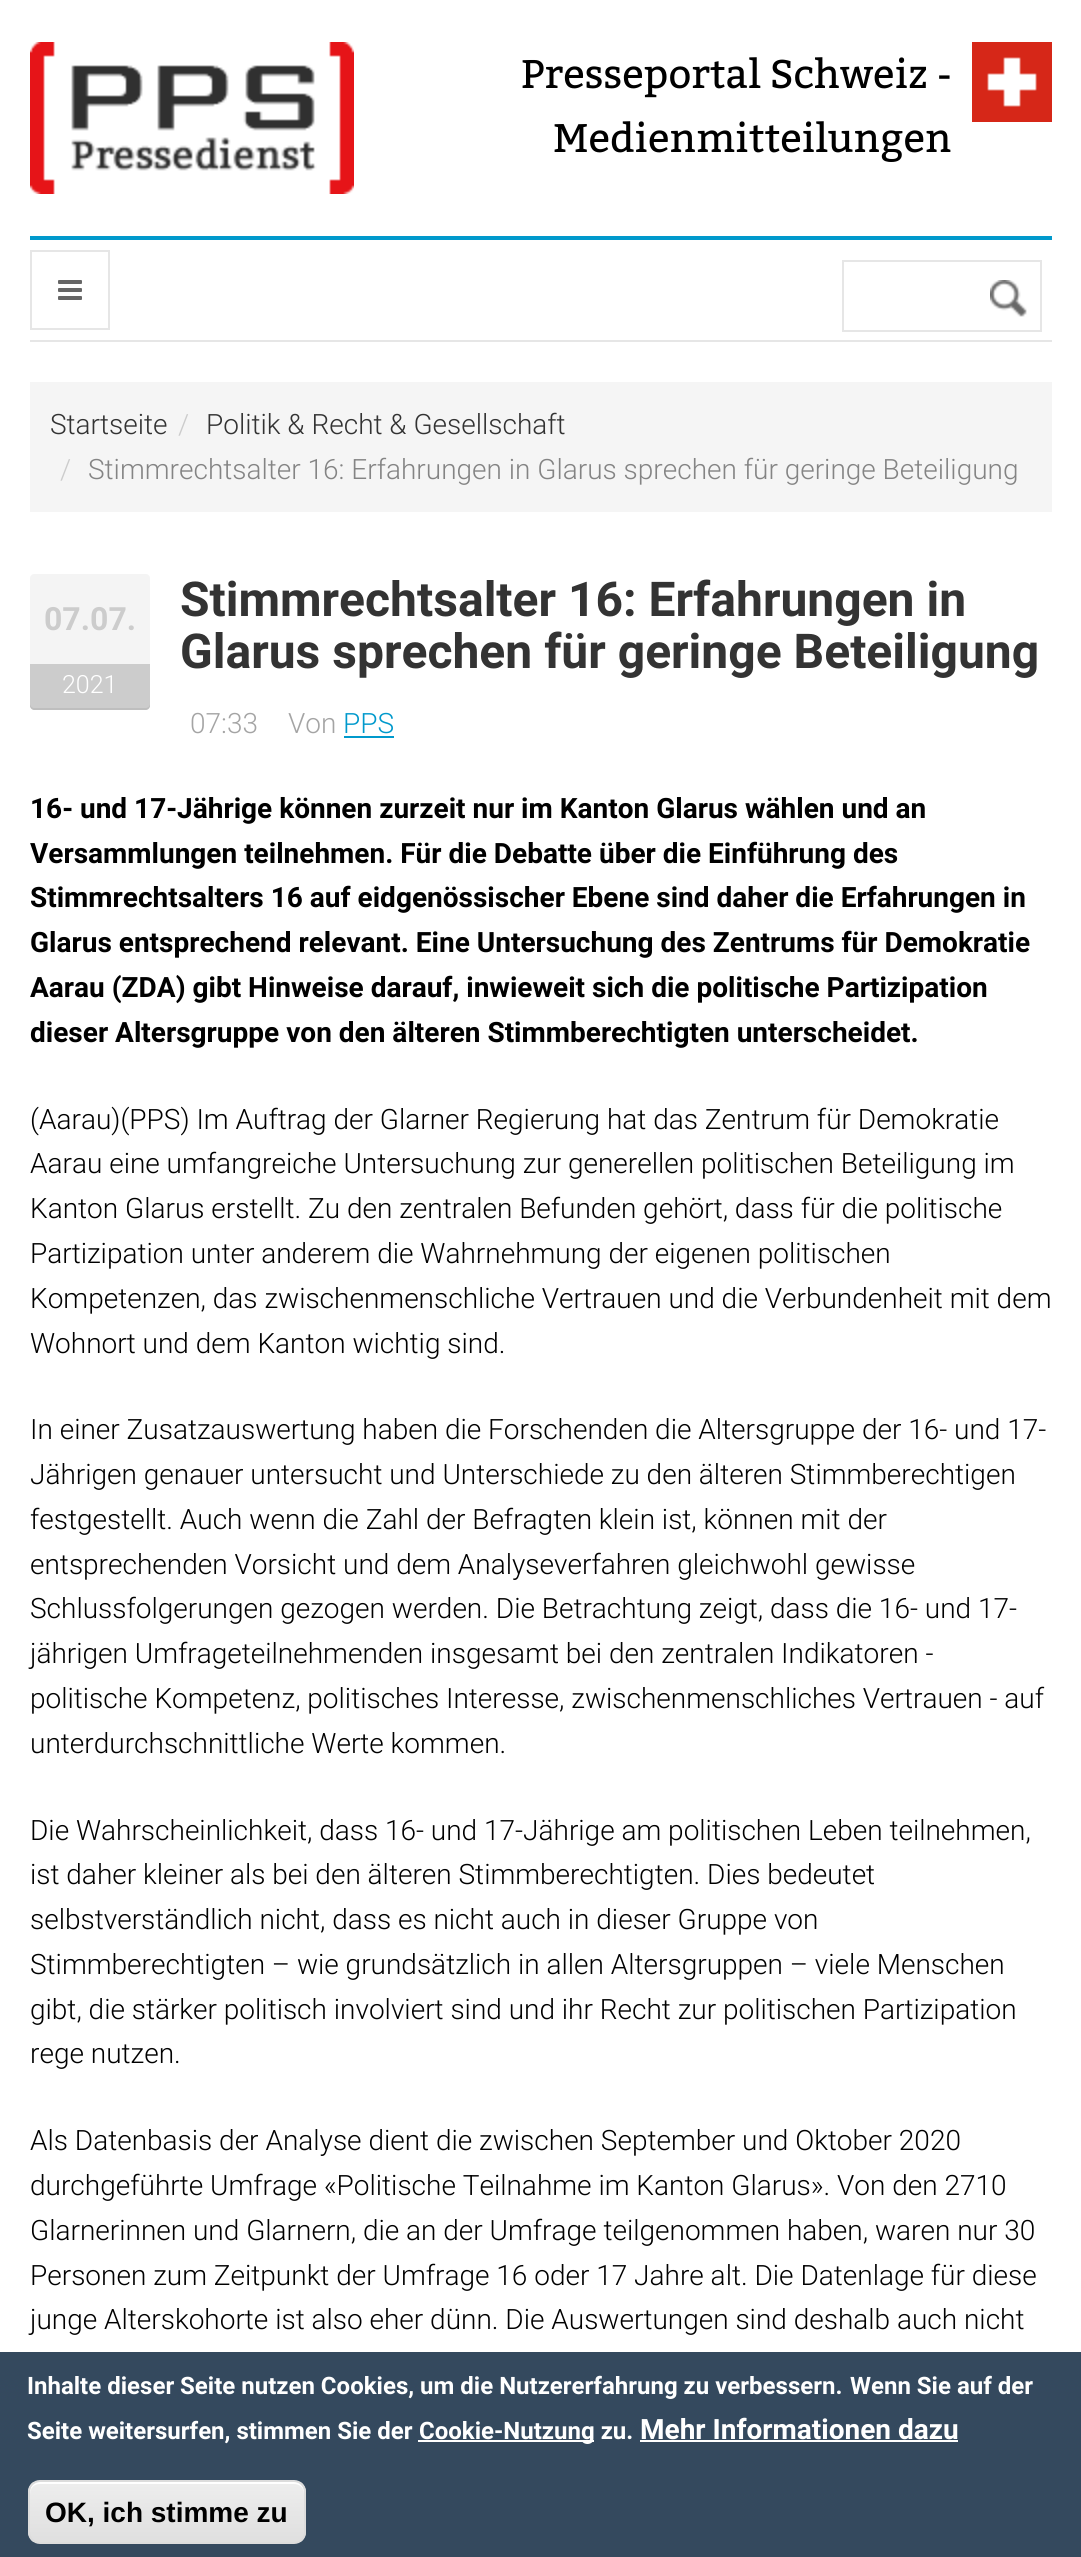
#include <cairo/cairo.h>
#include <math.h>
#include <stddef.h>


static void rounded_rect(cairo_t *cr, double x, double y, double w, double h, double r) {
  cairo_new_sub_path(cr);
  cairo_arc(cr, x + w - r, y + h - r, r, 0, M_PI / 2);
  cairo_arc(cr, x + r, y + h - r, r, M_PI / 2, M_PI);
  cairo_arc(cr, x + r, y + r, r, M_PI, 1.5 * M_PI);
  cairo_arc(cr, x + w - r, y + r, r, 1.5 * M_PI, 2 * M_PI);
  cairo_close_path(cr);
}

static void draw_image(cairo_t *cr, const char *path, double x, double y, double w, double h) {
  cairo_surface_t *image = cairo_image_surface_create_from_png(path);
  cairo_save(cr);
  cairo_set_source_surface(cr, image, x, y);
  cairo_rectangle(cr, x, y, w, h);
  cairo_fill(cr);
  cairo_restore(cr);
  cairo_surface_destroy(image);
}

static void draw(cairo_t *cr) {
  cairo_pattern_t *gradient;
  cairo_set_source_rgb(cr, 1, 1, 1);
  cairo_paint(cr);
  draw_image(cr, "images/1.png", 30, 42, 324, 152);
  draw_image(cr, "images/2.png", 972, 42, 80, 80);
  cairo_set_source_rgb(cr, 0, 153 / 255.0, 204 / 255.0);
  cairo_rectangle(cr, 30, 236, 1022, 4);
  cairo_fill(cr);
  cairo_set_source_rgb(cr, 230 / 255.0, 230 / 255.0, 230 / 255.0);
  cairo_rectangle(cr, 30, 340, 1022, 2);
  cairo_fill(cr);
  cairo_rectangle(cr, 31, 251, 78, 78);
  cairo_stroke(cr);
  draw_image(cr, "images/3.png", 58, 280, 24, 20);
  cairo_rectangle(cr, 843, 261, 198, 70);
  cairo_stroke(cr);
  draw_image(cr, "images/4.png", 990, 280, 37, 37);
  cairo_set_source_rgb(cr, 245 / 255.0, 245 / 255.0, 245 / 255.0);
  cairo_rectangle(cr, 30, 382, 1022, 130);
  cairo_fill(cr);
  cairo_set_source_rgb(cr, 244 / 255.0, 244 / 255.0, 244 / 255.0);
  cairo_new_path(cr);
  cairo_move_to(cr, 34, 574);
  cairo_line_to(cr, 146, 574);
  cairo_curve_to(cr, 148, 574, 150, 576, 150, 578);
  cairo_line_to(cr, 150, 664);
  cairo_line_to(cr, 30, 664);
  cairo_line_to(cr, 30, 578);
  cairo_curve_to(cr, 30, 576, 32, 574, 34, 574);
  cairo_close_path(cr);
  cairo_fill(cr);
  cairo_set_source_rgb(cr, 204 / 255.0, 204 / 255.0, 204 / 255.0);
  cairo_new_path(cr);
  cairo_move_to(cr, 30, 664);
  cairo_line_to(cr, 150, 664);
  cairo_line_to(cr, 150, 706);
  cairo_curve_to(cr, 150, 708, 148, 710, 146, 710);
  cairo_line_to(cr, 34, 710);
  cairo_curve_to(cr, 32, 710, 30, 708, 30, 706);
  cairo_close_path(cr);
  cairo_fill(cr);
  cairo_set_source_rgba(cr, 0, 0, 0, 0.07);
  cairo_new_path(cr);
  cairo_move_to(cr, 30, 704);
  cairo_line_to(cr, 30, 706);
  cairo_curve_to(cr, 30, 708, 32, 710, 34, 710);
  cairo_line_to(cr, 146, 710);
  cairo_curve_to(cr, 148, 710, 150, 708, 150, 706);
  cairo_line_to(cr, 150, 704);
  cairo_curve_to(cr, 150, 706, 148, 708, 146, 708);
  cairo_line_to(cr, 34, 708);
  cairo_curve_to(cr, 32, 708, 30, 706, 30, 704);
  cairo_close_path(cr);
  cairo_fill(cr);
  cairo_set_source_rgb(cr, 0, 153 / 255.0, 204 / 255.0);
  cairo_rectangle(cr, 344, 736, 50, 2);
  cairo_fill(cr);
  cairo_set_source_rgb(cr, 52 / 255.0, 73 / 255.0, 94 / 255.0);
  cairo_rectangle(cr, 0, 2352, 1081, 205);
  cairo_fill(cr);
  cairo_set_source_rgb(cr, 1, 1, 1);
  cairo_rectangle(cr, 418, 2440, 176, 2);
  cairo_fill(cr);
  cairo_rectangle(cr, 640, 2440, 318, 2);
  cairo_fill(cr);
  cairo_save(cr);
  rounded_rect(cr, 28, 2480, 278, 64, 12);
  cairo_clip(cr);
  gradient = cairo_pattern_create_linear(167, 2482, 167, 2542);
  cairo_pattern_add_color_stop_rgba(gradient, 0.05, 237 / 255.0, 237 / 255.0, 237 / 255.0, 1);
  cairo_pattern_add_color_stop_rgba(gradient, 1, 223 / 255.0, 223 / 255.0, 223 / 255.0, 1);
  cairo_set_source(cr, gradient);
  cairo_pattern_destroy(gradient);
  cairo_rectangle(cr, 28, 2482, 278, 60);
  cairo_fill(cr);
  cairo_restore(cr);
  cairo_new_path(cr);
  cairo_move_to(cr, 40, 2484);
  cairo_line_to(cr, 294, 2484);
  cairo_curve_to(cr, 300, 2484, 304, 2488, 304, 2494);
  cairo_line_to(cr, 304, 2492);
  cairo_curve_to(cr, 304, 2486, 300, 2482, 294, 2482);
  cairo_line_to(cr, 40, 2482);
  cairo_curve_to(cr, 34, 2482, 30, 2486, 30, 2492);
  cairo_line_to(cr, 30, 2494);
  cairo_curve_to(cr, 30, 2488, 34, 2484, 40, 2484);
  cairo_close_path(cr);
  cairo_fill(cr);
  rounded_rect(cr, 29, 2481, 276, 62, 11);
  cairo_set_source_rgb(cr, 220 / 255.0, 220 / 255.0, 220 / 255.0);
  cairo_stroke(cr);
  cairo_select_font_face(cr, "Bitter", CAIRO_FONT_SLANT_NORMAL, CAIRO_FONT_WEIGHT_NORMAL);
  cairo_set_font_size(cr, 40);
  cairo_set_source_rgb(cr, 0, 0, 0);
  cairo_move_to(cr, 521, 88);
  cairo_show_text(cr, "Presseportal Schweiz -");
  cairo_move_to(cr, 553, 152);
  cairo_show_text(cr, "Medienmitteilungen");
  cairo_select_font_face(cr, "Roboto Light", CAIRO_FONT_SLANT_NORMAL, CAIRO_FONT_WEIGHT_NORMAL);
  cairo_set_font_size(cr, 28);
  cairo_set_source_rgb(cr, 51 / 255.0, 51 / 255.0, 51 / 255.0);
  cairo_move_to(cr, 50, 434);
  cairo_show_text(cr, "Startseite");
  cairo_set_source_rgb(cr, 204 / 255.0, 204 / 255.0, 204 / 255.0);
  cairo_move_to(cr, 178, 434);
  cairo_show_text(cr, "/");
  cairo_set_source_rgb(cr, 51 / 255.0, 51 / 255.0, 51 / 255.0);
  cairo_move_to(cr, 206, 434);
  cairo_show_text(cr, "Politik & Recht & Gesellschaft");
  cairo_set_source_rgb(cr, 204 / 255.0, 204 / 255.0, 204 / 255.0);
  cairo_move_to(cr, 60, 479);
  cairo_show_text(cr, "/");
  cairo_set_source_rgb(cr, 132 / 255.0, 132 / 255.0, 132 / 255.0);
  cairo_move_to(cr, 88, 479);
  cairo_show_text(cr, "Stimmrechtsalter 16: Erfahrungen in Glarus sprechen für geringe Beteiligung");
  cairo_select_font_face(cr, "Roboto", CAIRO_FONT_SLANT_NORMAL, CAIRO_FONT_WEIGHT_BOLD);
  cairo_set_font_size(cr, 32);
  cairo_set_source_rgb(cr, 204 / 255.0, 204 / 255.0, 204 / 255.0);
  cairo_move_to(cr, 44, 630);
  cairo_show_text(cr, "07.07.");
  cairo_select_font_face(cr, "Roboto Light", CAIRO_FONT_SLANT_NORMAL, CAIRO_FONT_WEIGHT_NORMAL);
  cairo_set_font_size(cr, 25);
  cairo_set_source_rgb(cr, 1, 1, 1);
  cairo_move_to(cr, 62, 693);
  cairo_show_text(cr, "2021");
  cairo_select_font_face(cr, "Roboto", CAIRO_FONT_SLANT_NORMAL, CAIRO_FONT_WEIGHT_BOLD);
  cairo_set_font_size(cr, 48);
  cairo_set_source_rgb(cr, 51 / 255.0, 51 / 255.0, 51 / 255.0);
  cairo_move_to(cr, 180, 616);
  cairo_show_text(cr, "Stimmrechtsalter 16: Erfahrungen in");
  cairo_move_to(cr, 180, 668);
  cairo_show_text(cr, "Glarus sprechen für geringe Beteiligung");
  cairo_select_font_face(cr, "Roboto Light", CAIRO_FONT_SLANT_NORMAL, CAIRO_FONT_WEIGHT_NORMAL);
  cairo_set_font_size(cr, 28);
  cairo_set_source_rgb(cr, 164 / 255.0, 164 / 255.0, 164 / 255.0);
  cairo_move_to(cr, 190, 733);
  cairo_show_text(cr, "07:33");
  cairo_move_to(cr, 288, 733);
  cairo_show_text(cr, "Von");
  cairo_set_source_rgb(cr, 0, 153 / 255.0, 204 / 255.0);
  cairo_move_to(cr, 343, 733);
  cairo_show_text(cr, "PPS");
  cairo_select_font_face(cr, "Roboto", CAIRO_FONT_SLANT_NORMAL, CAIRO_FONT_WEIGHT_BOLD);
  cairo_set_source_rgb(cr, 0, 0, 0);
  cairo_move_to(cr, 30, 818);
  cairo_show_text(cr, "16- und 17-Jährige können zurzeit nur im Kanton Glarus wählen und an");
  cairo_move_to(cr, 30, 863);
  cairo_show_text(cr, "Versammlungen teilnehmen. Für die Debatte über die Einführung des");
  cairo_move_to(cr, 30, 907);
  cairo_show_text(cr, "Stimmrechtsalters 16 auf eidgenössischer Ebene sind daher die Erfahrungen in");
  cairo_move_to(cr, 30, 952);
  cairo_show_text(cr, "Glarus entsprechend relevant. Eine Untersuchung des Zentrums für Demokratie");
  cairo_move_to(cr, 30, 997);
  cairo_show_text(cr, "Aarau (ZDA) gibt Hinweise darauf, inwieweit sich die politische Partizipation");
  cairo_move_to(cr, 30, 1042);
  cairo_show_text(cr, "dieser Altersgruppe von den älteren Stimmberechtigten unterscheidet.");
  cairo_select_font_face(cr, "Roboto Light", CAIRO_FONT_SLANT_NORMAL, CAIRO_FONT_WEIGHT_NORMAL);
  cairo_move_to(cr, 30, 1129);
  cairo_show_text(cr, "(Aarau)(PPS) Im Auftrag der Glarner Regierung hat das Zentrum für Demokratie");
  cairo_move_to(cr, 30, 1173);
  cairo_show_text(cr, "Aarau eine umfangreiche Untersuchung zur generellen politischen Beteiligung im");
  cairo_move_to(cr, 30, 1218);
  cairo_show_text(cr, "Kanton Glarus erstellt. Zu den zentralen Befunden gehört, dass für die politische");
  cairo_move_to(cr, 30, 1263);
  cairo_show_text(cr, "Partizipation unter anderem die Wahrnehmung der eigenen politischen");
  cairo_move_to(cr, 30, 1308);
  cairo_show_text(cr, "Kompetenzen, das zwischenmenschliche Vertrauen und die Verbundenheit mit dem");
  cairo_move_to(cr, 30, 1353);
  cairo_show_text(cr, "Wohnort und dem Kanton wichtig sind.");
  cairo_move_to(cr, 30, 1439);
  cairo_show_text(cr, "In einer Zusatzauswertung haben die Forschenden die Altersgruppe der 16- und 17-");
  cairo_move_to(cr, 30, 1484);
  cairo_show_text(cr, "Jährigen genauer untersucht und Unterschiede zu den älteren Stimmberechtigen");
  cairo_move_to(cr, 30, 1529);
  cairo_show_text(cr, "festgestellt. Auch wenn die Zahl der Befragten klein ist, können mit der");
  cairo_move_to(cr, 30, 1574);
  cairo_show_text(cr, "entsprechenden Vorsicht und dem Analyseverfahren gleichwohl gewisse");
  cairo_move_to(cr, 30, 1618);
  cairo_show_text(cr, "Schlussfolgerungen gezogen werden. Die Betrachtung zeigt, dass die 16- und 17-");
  cairo_move_to(cr, 30, 1663);
  cairo_show_text(cr, "jährigen Umfrageteilnehmenden insgesamt bei den zentralen Indikatoren -");
  cairo_move_to(cr, 30, 1708);
  cairo_show_text(cr, "politische Kompetenz, politisches Interesse, zwischenmenschliches Vertrauen - auf");
  cairo_move_to(cr, 30, 1753);
  cairo_show_text(cr, "unterdurchschnittliche Werte kommen.");
  cairo_move_to(cr, 30, 1840);
  cairo_show_text(cr, "Die Wahrscheinlichkeit, dass 16- und 17-Jährige am politischen Leben teilnehmen,");
  cairo_move_to(cr, 30, 1884);
  cairo_show_text(cr, "ist daher kleiner als bei den älteren Stimmberechtigten. Dies bedeutet");
  cairo_move_to(cr, 30, 1929);
  cairo_show_text(cr, "selbstverständlich nicht, dass es nicht auch in dieser Gruppe von");
  cairo_move_to(cr, 30, 1974);
  cairo_show_text(cr, "Stimmberechtigten – wie grundsätzlich in allen Altersgruppen – viele Menschen");
  cairo_move_to(cr, 30, 2019);
  cairo_show_text(cr, "gibt, die stärker politisch involviert sind und ihr Recht zur politischen Partizipation");
  cairo_move_to(cr, 30, 2063);
  cairo_show_text(cr, "rege nutzen.");
  cairo_move_to(cr, 30, 2150);
  cairo_show_text(cr, "Als Datenbasis der Analyse dient die zwischen September und Oktober 2020");
  cairo_move_to(cr, 30, 2195);
  cairo_show_text(cr, "durchgeführte Umfrage «Politische Teilnahme im Kanton Glarus». Von den 2710");
  cairo_move_to(cr, 30, 2240);
  cairo_show_text(cr, "Glarnerinnen und Glarnern, die an der Umfrage teilgenommen haben, waren nur 30");
  cairo_move_to(cr, 30, 2285);
  cairo_show_text(cr, "Personen zum Zeitpunkt der Umfrage 16 oder 17 Jahre alt. Die Datenlage für diese");
  cairo_move_to(cr, 30, 2329);
  cairo_show_text(cr, "junge Alterskohorte ist also eher dünn. Die Auswertungen sind deshalb auch nicht");
  cairo_select_font_face(cr, "Roboto", CAIRO_FONT_SLANT_NORMAL, CAIRO_FONT_WEIGHT_BOLD);
  cairo_set_font_size(cr, 24);
  cairo_set_source_rgb(cr, 1, 1, 1);
  cairo_move_to(cr, 27, 2394);
  cairo_show_text(cr, "Inhalte dieser Seite nutzen Cookies, um die Nutzererfahrung zu verbessern.");
  cairo_move_to(cr, 850, 2394);
  cairo_show_text(cr, "Wenn Sie auf der");
  cairo_move_to(cr, 27, 2439);
  cairo_show_text(cr, "Seite weitersurfen, stimmen Sie der");
  cairo_move_to(cr, 419, 2439);
  cairo_show_text(cr, "Cookie-Nutzung zu.");
  cairo_set_font_size(cr, 28);
  cairo_move_to(cr, 640, 2439);
  cairo_show_text(cr, "Mehr Informationen dazu");
  cairo_select_font_face(cr, "Liberation Sans", CAIRO_FONT_SLANT_NORMAL, CAIRO_FONT_WEIGHT_BOLD);
  cairo_set_source_rgb(cr, 0, 0, 0);
  cairo_move_to(cr, 45, 2522);
  cairo_show_text(cr, "OK, ich stimme zu");
}

int main(void) {
  cairo_surface_t *surface = cairo_image_surface_create(CAIRO_FORMAT_RGB24, 1081, 2557);
  cairo_t *cr = cairo_create(surface);
  cairo_font_options_t *options = cairo_font_options_create();
  cairo_font_options_set_hint_metrics(options, CAIRO_HINT_METRICS_OFF);
  cairo_font_options_set_hint_style(options, CAIRO_HINT_STYLE_NONE);
  cairo_set_font_options(cr, options);
  cairo_set_miter_limit(cr, 4);
  draw(cr);
  cairo_surface_write_to_png(surface, "out.png");
  cairo_font_options_destroy(options);
  cairo_destroy(cr);
  cairo_surface_destroy(surface);
  return 0;
}
